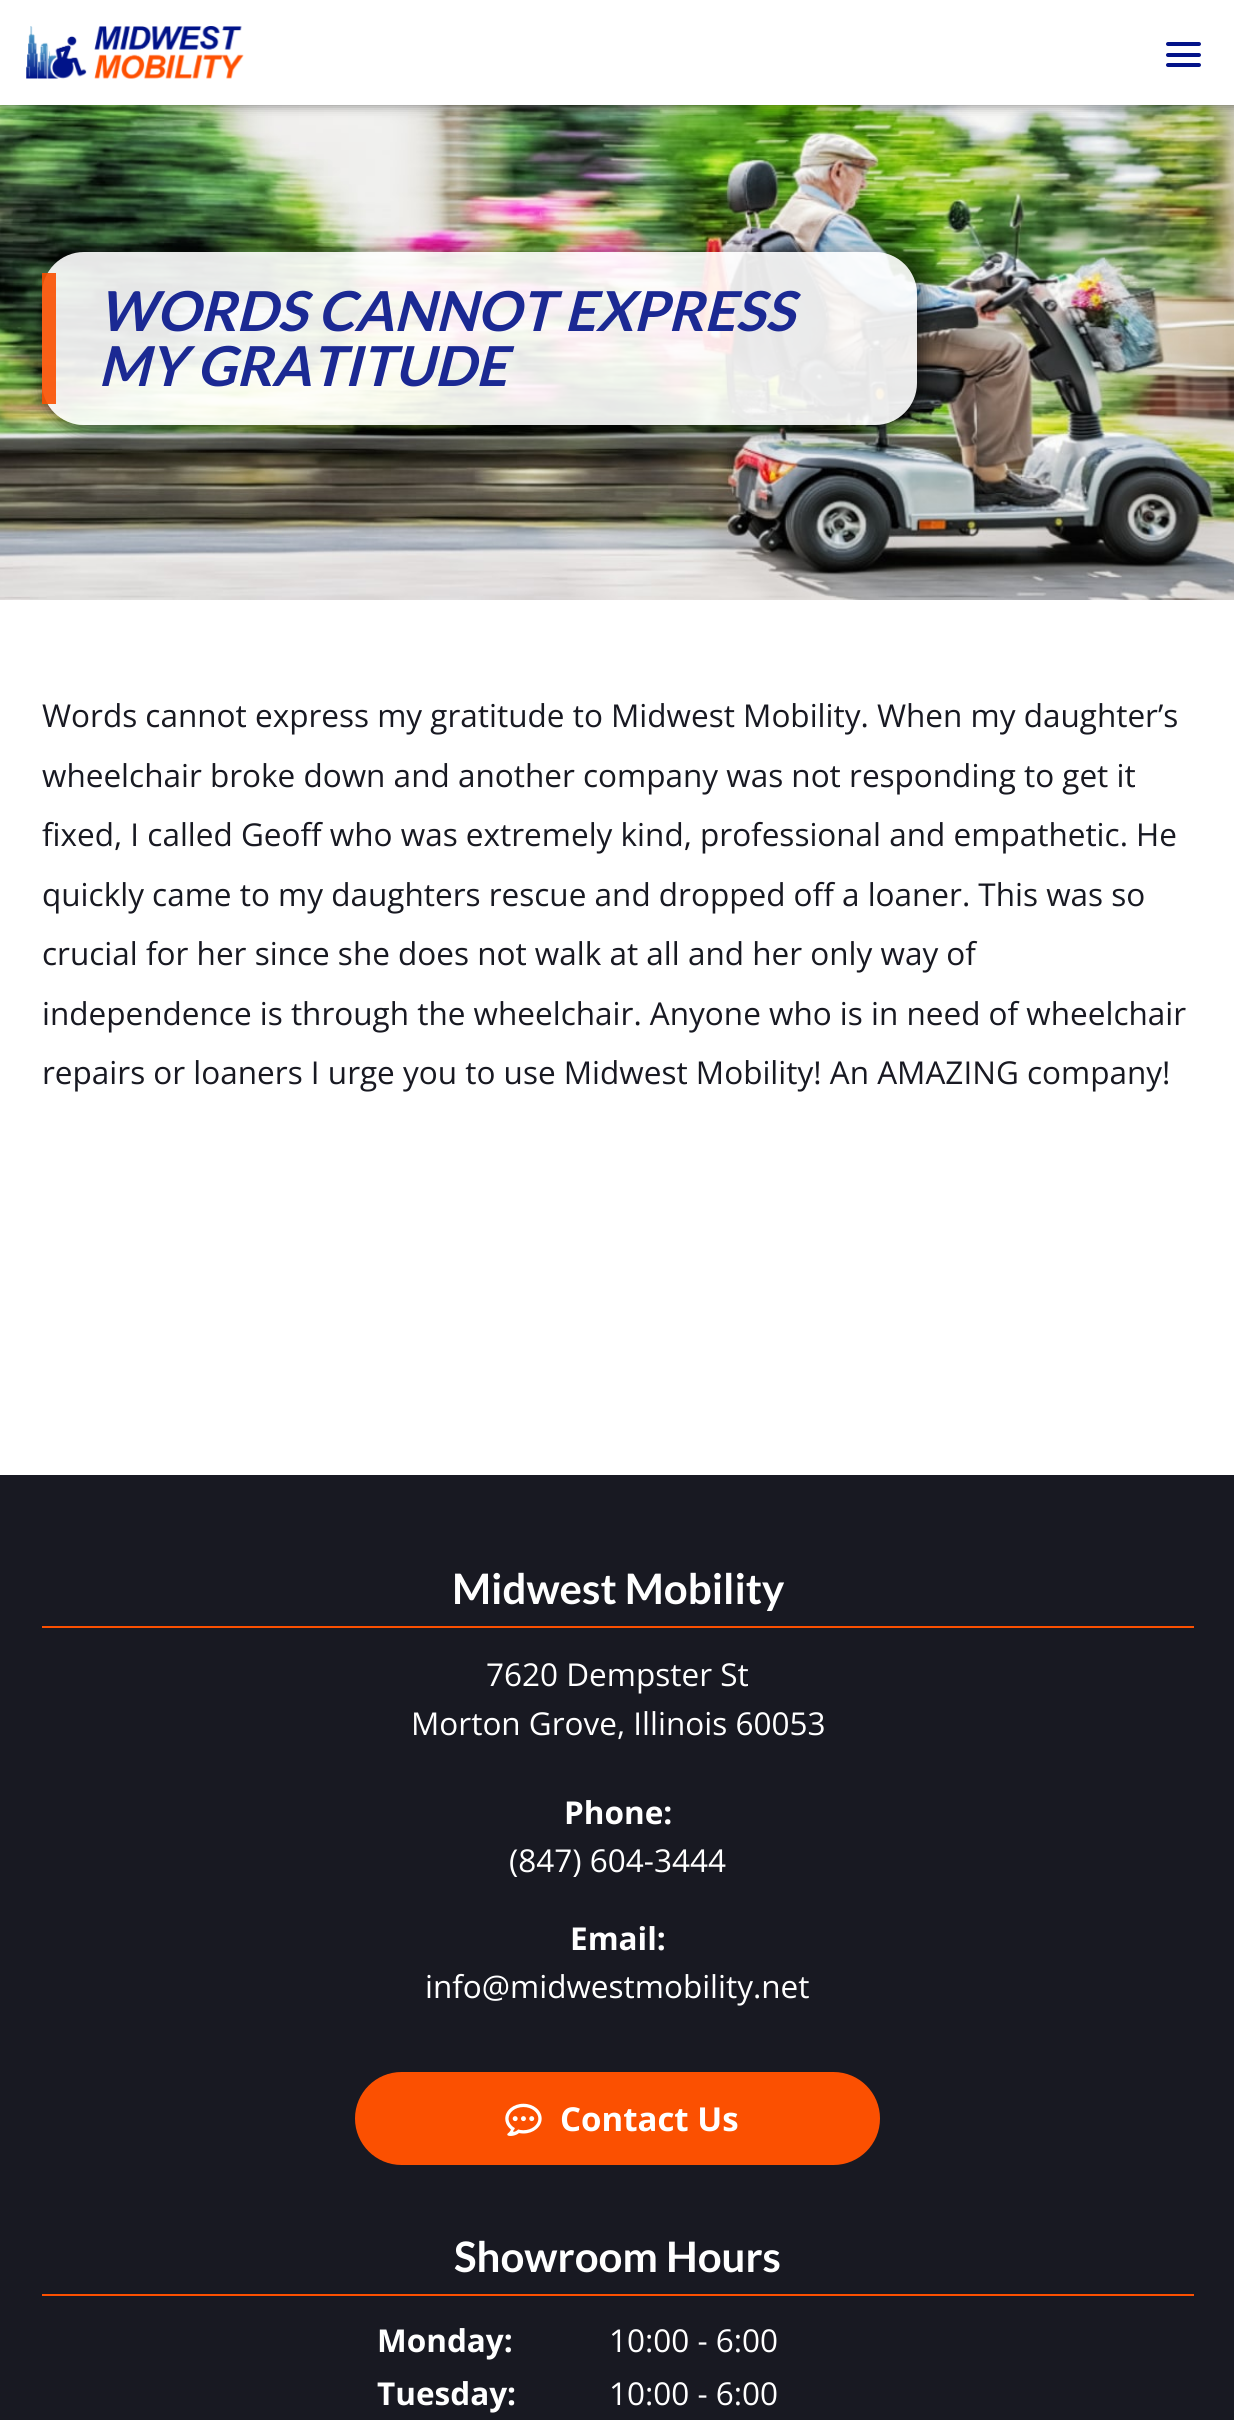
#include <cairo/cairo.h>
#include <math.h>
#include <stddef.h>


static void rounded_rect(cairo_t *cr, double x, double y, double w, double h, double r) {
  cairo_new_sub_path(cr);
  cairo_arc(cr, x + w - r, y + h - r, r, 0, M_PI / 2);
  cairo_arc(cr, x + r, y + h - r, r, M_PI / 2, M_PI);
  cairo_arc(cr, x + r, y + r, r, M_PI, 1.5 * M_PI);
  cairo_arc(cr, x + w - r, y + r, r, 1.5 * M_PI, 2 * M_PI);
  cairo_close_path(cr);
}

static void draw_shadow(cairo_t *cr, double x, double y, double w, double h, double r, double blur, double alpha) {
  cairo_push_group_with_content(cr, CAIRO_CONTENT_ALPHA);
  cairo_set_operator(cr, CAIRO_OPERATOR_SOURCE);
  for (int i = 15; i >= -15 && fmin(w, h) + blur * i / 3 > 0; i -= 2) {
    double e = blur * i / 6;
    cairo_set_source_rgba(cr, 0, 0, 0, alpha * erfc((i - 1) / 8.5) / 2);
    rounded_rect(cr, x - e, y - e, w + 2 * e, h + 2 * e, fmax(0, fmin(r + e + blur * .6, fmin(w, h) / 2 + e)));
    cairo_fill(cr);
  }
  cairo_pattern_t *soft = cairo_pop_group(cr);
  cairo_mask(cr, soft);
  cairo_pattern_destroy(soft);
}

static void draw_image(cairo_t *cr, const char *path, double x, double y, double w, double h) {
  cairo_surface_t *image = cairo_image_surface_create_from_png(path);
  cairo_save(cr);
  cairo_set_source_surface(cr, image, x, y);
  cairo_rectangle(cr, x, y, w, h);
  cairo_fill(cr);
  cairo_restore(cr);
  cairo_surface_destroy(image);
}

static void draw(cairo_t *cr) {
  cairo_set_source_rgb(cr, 1, 1, 1);
  cairo_paint(cr);
  draw_image(cr, "images/2.png", 0, 105, 1234, 495);
  cairo_set_source_rgb(cr, 0, 0, 0);
  draw_shadow(cr, 0, 0, 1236, 105, 0, 6, 0.5);
  cairo_set_source_rgb(cr, 1, 1, 1);
  cairo_rectangle(cr, 0, 0, 1234, 105);
  cairo_fill(cr);
  draw_image(cr, "images/1.png", 26, 26, 218, 53);
  cairo_set_source_rgb(cr, 3 / 255.0, 19 / 255.0, 137 / 255.0);
  rounded_rect(cr, 1166, 53, 35, 4, 2);
  cairo_fill(cr);
  rounded_rect(cr, 1166, 42, 35, 4, 2);
  cairo_fill(cr);
  rounded_rect(cr, 1166, 63, 35, 4, 2);
  cairo_fill(cr);
  cairo_save(cr);
  cairo_set_fill_rule(cr, CAIRO_FILL_RULE_EVEN_ODD);
  cairo_new_path(cr);
  cairo_move_to(cr, 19, 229);
  cairo_line_to(cr, 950, 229);
  cairo_line_to(cr, 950, 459);
  cairo_line_to(cr, 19, 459);
  cairo_close_path(cr);
  cairo_move_to(cr, 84, 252);
  cairo_line_to(cr, 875, 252);
  cairo_curve_to(cr, 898, 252, 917, 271, 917, 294);
  cairo_line_to(cr, 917, 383);
  cairo_curve_to(cr, 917, 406, 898, 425, 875, 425);
  cairo_line_to(cr, 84, 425);
  cairo_curve_to(cr, 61, 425, 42, 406, 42, 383);
  cairo_line_to(cr, 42, 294);
  cairo_curve_to(cr, 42, 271, 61, 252, 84, 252);
  cairo_close_path(cr);
  cairo_clip(cr);
  cairo_set_source_rgb(cr, 0, 0, 0);
  draw_shadow(cr, 47, 257, 875, 174, 42, 9, 0.63);
  cairo_restore(cr);
  cairo_set_source_rgba(cr, 1, 1, 1, 0.9);
  rounded_rect(cr, 42, 252, 875, 173, 42);
  cairo_fill(cr);
  cairo_set_source_rgba(cr, 251 / 255.0, 80 / 255.0, 1 / 255.0, 0.9);
  cairo_rectangle(cr, 42, 273, 14, 131);
  cairo_fill(cr);
  cairo_set_source_rgb(cr, 24 / 255.0, 25 / 255.0, 34 / 255.0);
  cairo_rectangle(cr, 0, 1475, 1234, 945);
  cairo_fill(cr);
  cairo_set_source_rgb(cr, 251 / 255.0, 80 / 255.0, 1 / 255.0);
  cairo_rectangle(cr, 42, 1626, 1152, 2);
  cairo_fill(cr);
  rounded_rect(cr, 355, 2072, 525, 93, 46.5);
  cairo_fill(cr);
  draw_image(cr, "images/3.png", 505, 2103, 37, 33);
  cairo_rectangle(cr, 42, 2294, 1152, 2);
  cairo_fill(cr);
  cairo_select_font_face(cr, "Lato", CAIRO_FONT_SLANT_ITALIC, CAIRO_FONT_WEIGHT_BOLD);
  cairo_set_font_size(cr, 55.1);
  cairo_set_source_rgb(cr, 27 / 255.0, 41 / 255.0, 147 / 255.0);
  cairo_move_to(cr, 98, 331);
  cairo_show_text(cr, "WORDS CANNOT EXPRESS");
  cairo_move_to(cr, 98, 386);
  cairo_show_text(cr, "MY GRATITUDE");
  cairo_select_font_face(cr, "Open Sans", CAIRO_FONT_SLANT_NORMAL, CAIRO_FONT_WEIGHT_NORMAL);
  cairo_set_font_size(cr, 31.5);
  cairo_set_source_rgb(cr, 24 / 255.0, 25 / 255.0, 34 / 255.0);
  cairo_move_to(cr, 42, 727);
  cairo_show_text(cr, "Words cannot express my gratitude to Midwest Mobility. When my daughter’s");
  cairo_move_to(cr, 42, 787);
  cairo_show_text(cr, "wheelchair broke down and another company was not responding to get it");
  cairo_move_to(cr, 42, 846);
  cairo_show_text(cr, "fixed, I called Geoff who was extremely kind, professional and empathetic. He");
  cairo_move_to(cr, 42, 906);
  cairo_show_text(cr, "quickly came to my daughters rescue and dropped off a loaner. This was so");
  cairo_move_to(cr, 42, 965);
  cairo_show_text(cr, "crucial for her since she does not walk at all and her only way of");
  cairo_move_to(cr, 42, 1025);
  cairo_show_text(cr, "independence is through the wheelchair. Anyone who is in need of wheelchair");
  cairo_move_to(cr, 42, 1084);
  cairo_show_text(cr, "repairs or loaners I urge you to use Midwest Mobility! An AMAZING company!");
  cairo_select_font_face(cr, "Lato", CAIRO_FONT_SLANT_NORMAL, CAIRO_FONT_WEIGHT_BOLD);
  cairo_set_font_size(cr, 42);
  cairo_set_source_rgb(cr, 1, 1, 1);
  cairo_move_to(cr, 452, 1604);
  cairo_show_text(cr, "Midwest Mobility");
  cairo_select_font_face(cr, "Open Sans", CAIRO_FONT_SLANT_NORMAL, CAIRO_FONT_WEIGHT_NORMAL);
  cairo_set_font_size(cr, 31.5);
  cairo_move_to(cr, 486, 1686);
  cairo_show_text(cr, "7620 Dempster St");
  cairo_move_to(cr, 411, 1735);
  cairo_show_text(cr, "Morton Grove, Illinois 60053");
  cairo_select_font_face(cr, "Open Sans", CAIRO_FONT_SLANT_NORMAL, CAIRO_FONT_WEIGHT_BOLD);
  cairo_move_to(cr, 564, 1824);
  cairo_show_text(cr, "Phone:");
  cairo_select_font_face(cr, "Open Sans", CAIRO_FONT_SLANT_NORMAL, CAIRO_FONT_WEIGHT_NORMAL);
  cairo_move_to(cr, 509, 1872);
  cairo_show_text(cr, "(847) 604-3444");
  cairo_select_font_face(cr, "Open Sans", CAIRO_FONT_SLANT_NORMAL, CAIRO_FONT_WEIGHT_BOLD);
  cairo_move_to(cr, 570, 1950);
  cairo_show_text(cr, "Email:");
  cairo_select_font_face(cr, "Open Sans", CAIRO_FONT_SLANT_NORMAL, CAIRO_FONT_WEIGHT_NORMAL);
  cairo_move_to(cr, 425, 1998);
  cairo_show_text(cr, "info@midwestmobility.net");
  cairo_select_font_face(cr, "Open Sans", CAIRO_FONT_SLANT_NORMAL, CAIRO_FONT_WEIGHT_BOLD);
  cairo_set_font_size(cr, 33);
  cairo_move_to(cr, 560, 2131);
  cairo_show_text(cr, "Contact Us");
  cairo_select_font_face(cr, "Lato", CAIRO_FONT_SLANT_NORMAL, CAIRO_FONT_WEIGHT_BOLD);
  cairo_set_font_size(cr, 42);
  cairo_move_to(cr, 454, 2272);
  cairo_show_text(cr, "Showroom Hours");
  cairo_select_font_face(cr, "Open Sans", CAIRO_FONT_SLANT_NORMAL, CAIRO_FONT_WEIGHT_BOLD);
  cairo_set_font_size(cr, 31.5);
  cairo_move_to(cr, 377, 2352);
  cairo_show_text(cr, "Monday:");
  cairo_select_font_face(cr, "Open Sans", CAIRO_FONT_SLANT_NORMAL, CAIRO_FONT_WEIGHT_NORMAL);
  cairo_move_to(cr, 609, 2352);
  cairo_show_text(cr, "10:00 - 6:00");
  cairo_select_font_face(cr, "Open Sans", CAIRO_FONT_SLANT_NORMAL, CAIRO_FONT_WEIGHT_BOLD);
  cairo_move_to(cr, 377, 2405);
  cairo_show_text(cr, "Tuesday:");
  cairo_select_font_face(cr, "Open Sans", CAIRO_FONT_SLANT_NORMAL, CAIRO_FONT_WEIGHT_NORMAL);
  cairo_move_to(cr, 609, 2405);
  cairo_show_text(cr, "10:00 - 6:00");
}

int main(void) {
  cairo_surface_t *surface = cairo_image_surface_create(CAIRO_FORMAT_RGB24, 1234, 2420);
  cairo_t *cr = cairo_create(surface);
  cairo_font_options_t *options = cairo_font_options_create();
  cairo_font_options_set_hint_metrics(options, CAIRO_HINT_METRICS_OFF);
  cairo_font_options_set_hint_style(options, CAIRO_HINT_STYLE_NONE);
  cairo_set_font_options(cr, options);
  cairo_set_miter_limit(cr, 4);
  draw(cr);
  cairo_surface_write_to_png(surface, "out.png");
  cairo_font_options_destroy(options);
  cairo_destroy(cr);
  cairo_surface_destroy(surface);
  return 0;
}
